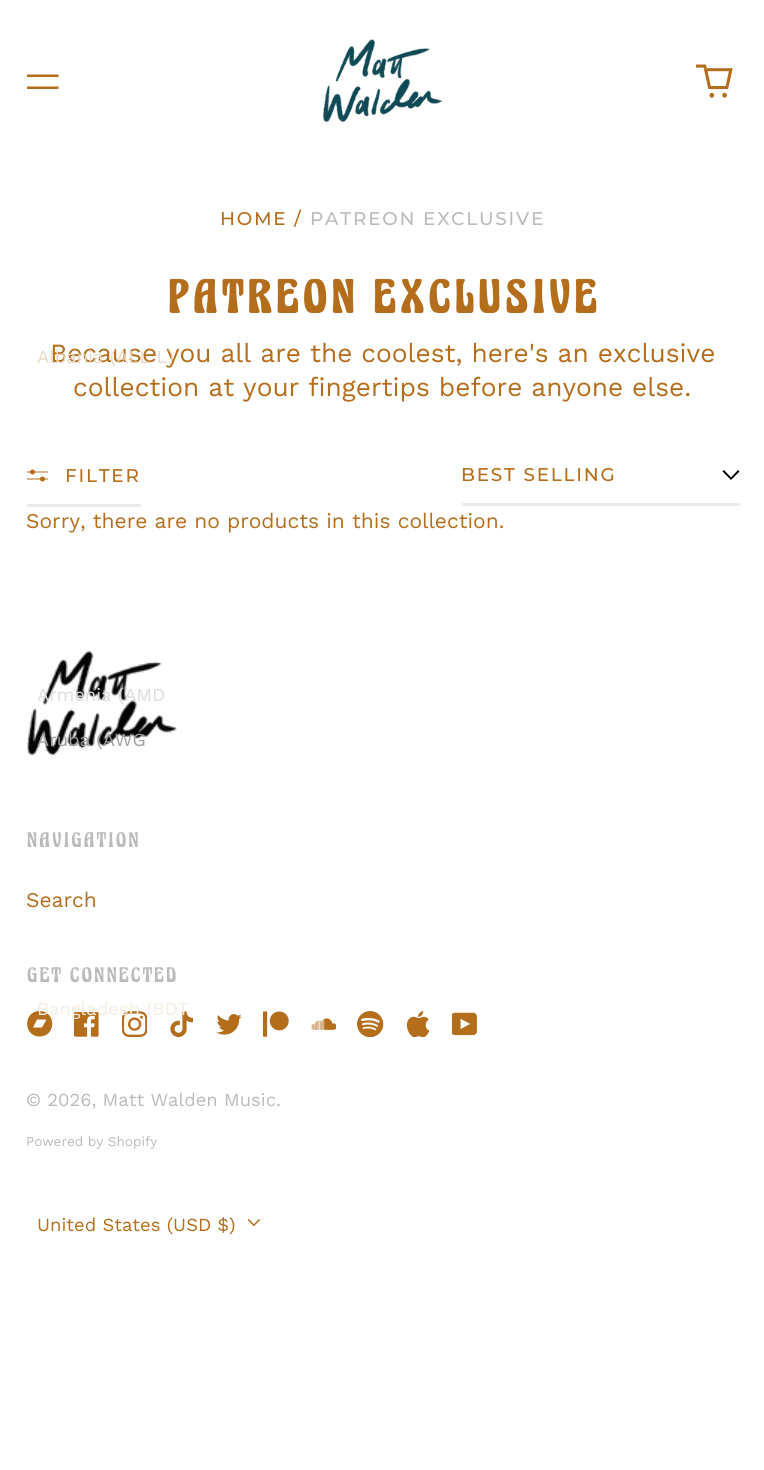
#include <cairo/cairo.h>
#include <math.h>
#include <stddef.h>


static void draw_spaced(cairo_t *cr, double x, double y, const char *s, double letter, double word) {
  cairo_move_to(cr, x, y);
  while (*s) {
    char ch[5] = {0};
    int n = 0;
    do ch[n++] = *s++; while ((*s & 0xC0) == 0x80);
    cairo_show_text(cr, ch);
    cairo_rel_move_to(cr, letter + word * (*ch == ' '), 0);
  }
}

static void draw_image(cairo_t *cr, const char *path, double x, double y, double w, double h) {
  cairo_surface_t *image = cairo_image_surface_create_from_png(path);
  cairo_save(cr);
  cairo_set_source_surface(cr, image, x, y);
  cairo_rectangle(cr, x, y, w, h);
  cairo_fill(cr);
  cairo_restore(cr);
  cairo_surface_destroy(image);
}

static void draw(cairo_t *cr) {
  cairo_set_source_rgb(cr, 1, 1, 1);
  cairo_paint(cr);
  cairo_set_source_rgb(cr, 180 / 255.0, 109 / 255.0, 27 / 255.0);
  cairo_set_fill_rule(cr, CAIRO_FILL_RULE_EVEN_ODD);
  cairo_new_path(cr);
  cairo_move_to(cr, 58.5, 86.5);
  cairo_line_to(cr, 58.5, 89);
  cairo_line_to(cr, 27, 89);
  cairo_line_to(cr, 27, 86.5);
  cairo_close_path(cr);
  cairo_move_to(cr, 58.5, 74.5);
  cairo_line_to(cr, 58.5, 77);
  cairo_line_to(cr, 27, 77);
  cairo_line_to(cr, 27, 74.5);
  cairo_close_path(cr);
  cairo_fill(cr);
  draw_image(cr, "images/1.png", 323, 39, 119, 84);
  draw_image(cr, "images/2.png", 696, 64, 37, 34);
  cairo_set_source_rgb(cr, 235 / 255.0, 235 / 255.0, 235 / 255.0);
  cairo_rectangle(cr, 27, 504, 114, 3);
  cairo_fill(cr);
  draw_image(cr, "images/3.png", 27, 469, 21, 13);
  cairo_set_source_rgb(cr, 0, 0, 0);
  cairo_new_path(cr);
  cairo_move_to(cr, 738, 470);
  cairo_line_to(cr, 739.5, 471.5);
  cairo_line_to(cr, 731, 480);
  cairo_line_to(cr, 722.5, 471.5);
  cairo_line_to(cr, 724, 470);
  cairo_line_to(cr, 731, 477.5);
  cairo_close_path(cr);
  cairo_fill(cr);
  cairo_set_source_rgb(cr, 235 / 255.0, 235 / 255.0, 235 / 255.0);
  cairo_rectangle(cr, 462, 503, 278, 3);
  cairo_fill(cr);
  draw_image(cr, "images/4.png", 247, 1219, 13, 8);
  draw_image(cr, "images/5.png", 27, 650, 150, 105);
  cairo_set_source_rgb(cr, 180 / 255.0, 109 / 255.0, 27 / 255.0);
  cairo_set_fill_rule(cr, CAIRO_FILL_RULE_WINDING);
  cairo_new_path(cr);
  cairo_move_to(cr, 42, 1027.5);
  cairo_line_to(cr, 33, 1027.5);
  cairo_line_to(cr, 37, 1019.5);
  cairo_line_to(cr, 46.5, 1019.5);
  cairo_close_path(cr);
  cairo_move_to(cr, 39.5, 1011);
  cairo_curve_to(cr, 23, 1011, 23, 1036.5, 39.5, 1036.5);
  cairo_curve_to(cr, 56.5, 1036.5, 56.5, 1011, 39.5, 1011);
  cairo_close_path(cr);
  cairo_fill(cr);
  draw_image(cr, "images/6.png", 74, 1012, 25, 25);
  draw_image(cr, "images/7.png", 122, 1011, 25, 26);
  draw_image(cr, "images/8.png", 170, 1011, 23, 26);
  draw_image(cr, "images/9.png", 216, 1014, 26, 21);
  draw_image(cr, "images/10.png", 263, 1011, 26, 26);
  draw_image(cr, "images/11.png", 311, 1018, 25, 12);
  draw_image(cr, "images/12.png", 357, 1011, 27, 26);
  draw_image(cr, "images/13.png", 406, 1011, 24, 26);
  draw_image(cr, "images/14.png", 452, 1012, 25, 24);
  cairo_select_font_face(cr, "Montserrat Medium", CAIRO_FONT_SLANT_NORMAL, CAIRO_FONT_WEIGHT_NORMAL);
  cairo_set_font_size(cr, 18.4);
  draw_spaced(cr, 220, 225, "HOME /", 1.8, 0);
  cairo_set_source_rgb(cr, 187 / 255.0, 187 / 255.0, 187 / 255.0);
  draw_spaced(cr, 310, 225, "PATREON EXCLUSIVE", 1.8, 0);
  cairo_select_font_face(cr, "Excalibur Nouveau", CAIRO_FONT_SLANT_NORMAL, CAIRO_FONT_WEIGHT_BOLD);
  cairo_set_font_size(cr, 41);
  cairo_set_source_rgb(cr, 180 / 255.0, 109 / 255.0, 27 / 255.0);
  draw_spaced(cr, 166, 313, "PATREON EXCLUSIVE", 4.1, 0);
  cairo_select_font_face(cr, "Work Sans", CAIRO_FONT_SLANT_NORMAL, CAIRO_FONT_WEIGHT_NORMAL);
  cairo_set_font_size(cr, 26.25);
  cairo_move_to(cr, 50, 362);
  cairo_show_text(cr, "Because you all are the coolest, here's an exclusive");
  cairo_move_to(cr, 73, 396);
  cairo_show_text(cr, "collection at your fingertips before anyone else.");
  cairo_select_font_face(cr, "Montserrat Medium", CAIRO_FONT_SLANT_NORMAL, CAIRO_FONT_WEIGHT_NORMAL);
  cairo_set_font_size(cr, 18.4);
  draw_spaced(cr, 65, 482, "FILTER", 1.8, 0);
  draw_spaced(cr, 461, 481, "BEST SELLING", 1.8, 0);
  cairo_select_font_face(cr, "Work Sans", CAIRO_FONT_SLANT_NORMAL, CAIRO_FONT_WEIGHT_NORMAL);
  cairo_set_font_size(cr, 21);
  cairo_move_to(cr, 26, 528);
  cairo_show_text(cr, "Sorry, there are no products in this collection.");
  cairo_set_font_size(cr, 18.4);
  cairo_set_source_rgb(cr, 235 / 255.0, 217 / 255.0, 195 / 255.0);
  cairo_move_to(cr, 37, 363);
  cairo_show_text(cr, "Albania (ALL L)");
  cairo_set_source_rgb(cr, 220 / 255.0, 220 / 255.0, 220 / 255.0);
  cairo_move_to(cr, 37, 701);
  cairo_show_text(cr, "Armenia (AMD");
  cairo_set_source_rgb(cr, 158 / 255.0, 158 / 255.0, 158 / 255.0);
  cairo_move_to(cr, 37, 746);
  cairo_show_text(cr, "Aruba (AWG");
  cairo_set_source_rgb(cr, 246 / 255.0, 237 / 255.0, 226 / 255.0);
  cairo_move_to(cr, 37, 1015);
  cairo_show_text(cr, "Bangladesh (BDT");
  cairo_set_source_rgb(cr, 180 / 255.0, 109 / 255.0, 27 / 255.0);
  cairo_move_to(cr, 37, 1231);
  cairo_show_text(cr, "United States (USD $)");
  cairo_set_source_rgb(cr, 187 / 255.0, 187 / 255.0, 187 / 255.0);
  cairo_move_to(cr, 26, 1106);
  cairo_show_text(cr, "© 2026, Matt Walden Music.");
  cairo_set_font_size(cr, 13.5);
  cairo_move_to(cr, 26, 1146);
  cairo_show_text(cr, "Powered by Shopify");
  cairo_select_font_face(cr, "Excalibur Nouveau Medium", CAIRO_FONT_SLANT_NORMAL, CAIRO_FONT_WEIGHT_NORMAL);
  cairo_set_font_size(cr, 18.4);
  draw_spaced(cr, 26, 847, "NAVIGATION", 1.8, 0);
  cairo_select_font_face(cr, "Work Sans", CAIRO_FONT_SLANT_NORMAL, CAIRO_FONT_WEIGHT_NORMAL);
  cairo_set_font_size(cr, 21);
  cairo_set_source_rgb(cr, 180 / 255.0, 109 / 255.0, 27 / 255.0);
  cairo_move_to(cr, 26, 907);
  cairo_show_text(cr, "Search");
  cairo_select_font_face(cr, "Excalibur Nouveau Medium", CAIRO_FONT_SLANT_NORMAL, CAIRO_FONT_WEIGHT_NORMAL);
  cairo_set_font_size(cr, 18.4);
  cairo_set_source_rgb(cr, 187 / 255.0, 187 / 255.0, 187 / 255.0);
  draw_spaced(cr, 26, 982, "GET CONNECTED", 1.8, 0);
}

int main(void) {
  cairo_surface_t *surface = cairo_image_surface_create(CAIRO_FORMAT_RGB24, 764, 1470);
  cairo_t *cr = cairo_create(surface);
  cairo_font_options_t *options = cairo_font_options_create();
  cairo_font_options_set_hint_metrics(options, CAIRO_HINT_METRICS_OFF);
  cairo_font_options_set_hint_style(options, CAIRO_HINT_STYLE_NONE);
  cairo_set_font_options(cr, options);
  cairo_set_miter_limit(cr, 4);
  draw(cr);
  cairo_surface_write_to_png(surface, "out.png");
  cairo_font_options_destroy(options);
  cairo_destroy(cr);
  cairo_surface_destroy(surface);
  return 0;
}
